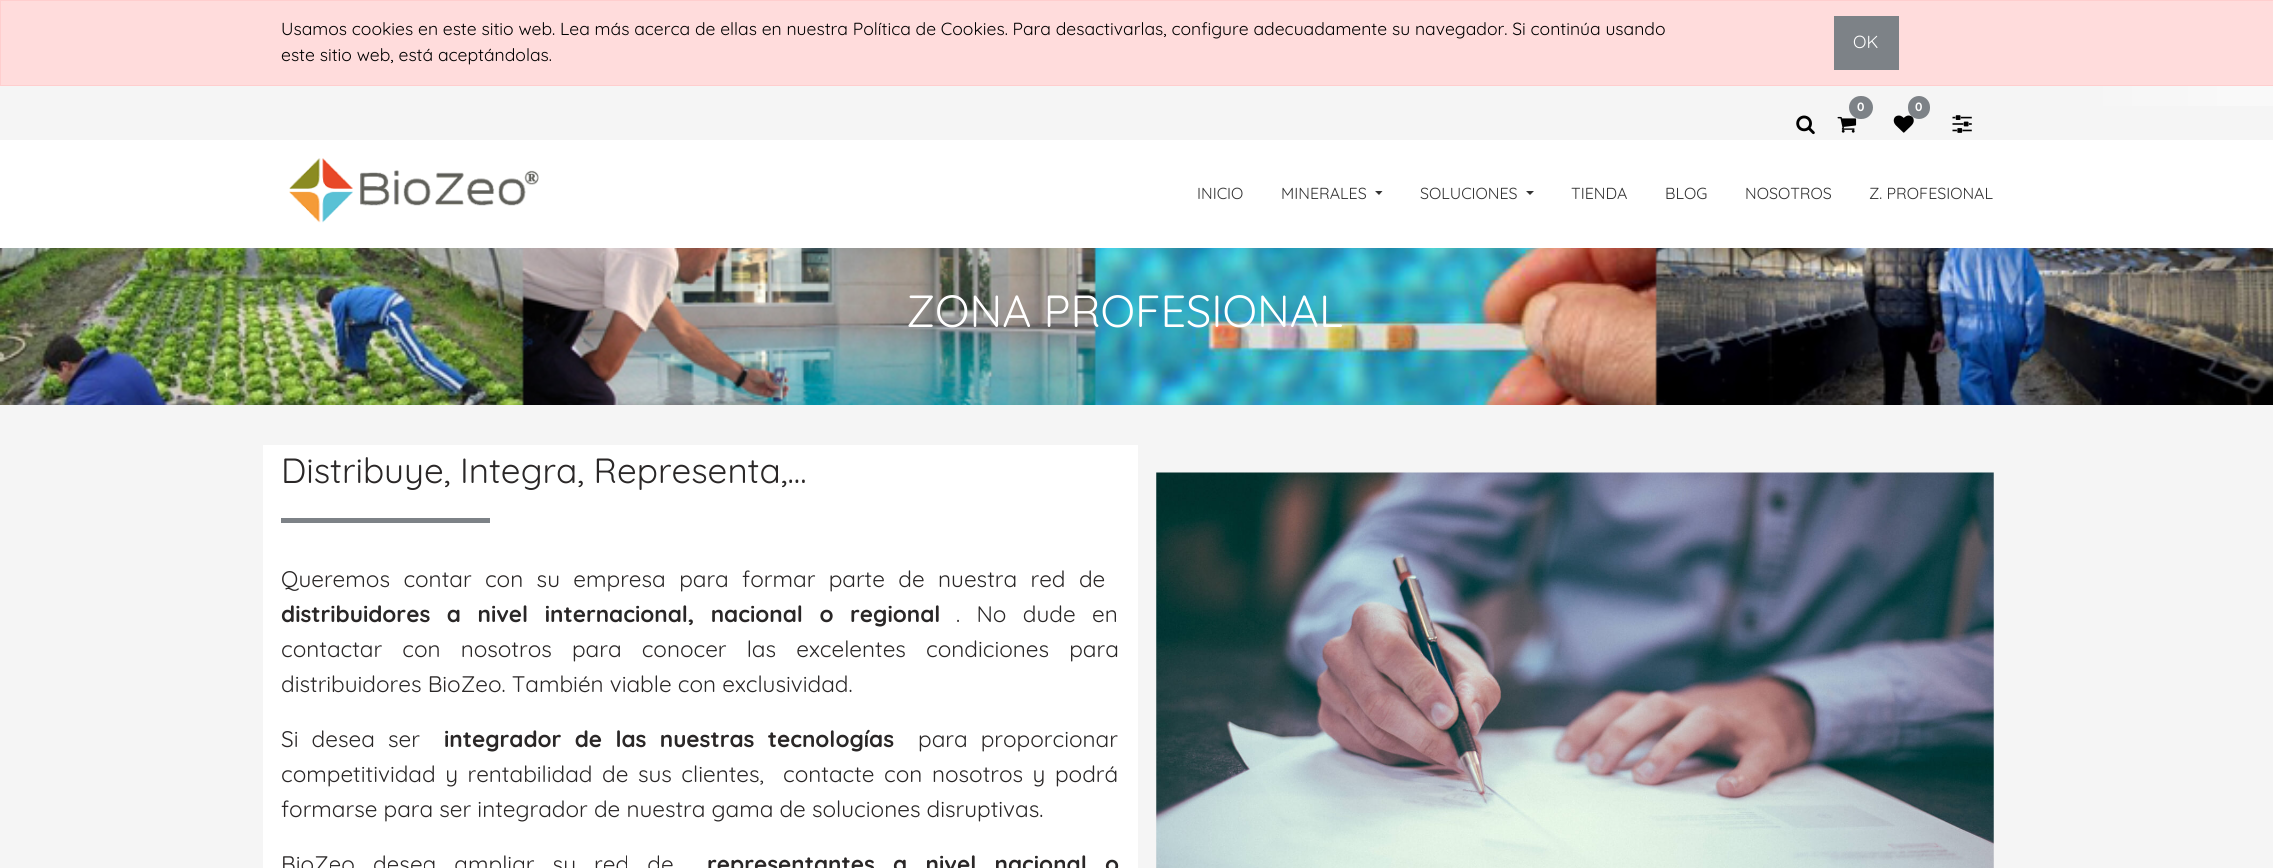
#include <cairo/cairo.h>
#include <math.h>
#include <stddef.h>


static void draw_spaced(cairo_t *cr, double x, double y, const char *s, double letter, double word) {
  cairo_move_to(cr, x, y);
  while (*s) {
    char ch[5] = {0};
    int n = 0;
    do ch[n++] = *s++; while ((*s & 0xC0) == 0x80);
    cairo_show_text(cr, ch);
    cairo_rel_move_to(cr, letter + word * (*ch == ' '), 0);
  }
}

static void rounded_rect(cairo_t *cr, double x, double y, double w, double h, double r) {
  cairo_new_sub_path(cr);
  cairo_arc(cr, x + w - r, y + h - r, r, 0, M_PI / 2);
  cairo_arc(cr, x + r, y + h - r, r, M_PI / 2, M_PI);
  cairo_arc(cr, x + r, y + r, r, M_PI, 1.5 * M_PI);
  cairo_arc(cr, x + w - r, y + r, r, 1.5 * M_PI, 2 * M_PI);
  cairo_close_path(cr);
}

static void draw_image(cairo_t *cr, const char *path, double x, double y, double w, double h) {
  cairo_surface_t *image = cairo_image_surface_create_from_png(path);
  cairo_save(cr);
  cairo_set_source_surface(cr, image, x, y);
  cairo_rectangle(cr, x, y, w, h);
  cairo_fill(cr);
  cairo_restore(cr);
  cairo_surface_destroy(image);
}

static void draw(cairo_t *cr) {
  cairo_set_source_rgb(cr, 1, 1, 1);
  cairo_paint(cr);
  draw_image(cr, "images/1.png", 0, 86, 2273, 20);
  cairo_set_source_rgb(cr, 1, 220 / 255.0, 220 / 255.0);
  cairo_rectangle(cr, 0.5, 0.5, 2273, 85);
  cairo_fill_preserve(cr);
  cairo_set_source_rgb(cr, 1, 206 / 255.0, 206 / 255.0);
  cairo_set_line_width(cr, 1);
  cairo_stroke(cr);
  cairo_set_source_rgb(cr, 125 / 255.0, 130 / 255.0, 135 / 255.0);
  cairo_rectangle(cr, 1834, 16, 65, 54);
  cairo_fill(cr);
  cairo_set_source_rgb(cr, 245 / 255.0, 245 / 255.0, 245 / 255.0);
  cairo_rectangle(cr, 0, 106, 2273, 34);
  cairo_fill(cr);
  draw_image(cr, "images/2.png", 1837, 116, 20, 17);
  cairo_set_source_rgb(cr, 125 / 255.0, 130 / 255.0, 135 / 255.0);
  rounded_rect(cr, 1849, 96, 24, 23, 11.5);
  cairo_fill(cr);
  draw_image(cr, "images/3.png", 1893, 115, 21, 18);
  rounded_rect(cr, 1908, 96, 22, 23, 11);
  cairo_fill(cr);
  draw_image(cr, "images/4.png", 1796, 115, 19, 20);
  draw_image(cr, "images/5.png", 1952, 115, 20, 18);
  draw_image(cr, "images/6.png", 289, 158, 250, 65);
  cairo_set_source_rgb(cr, 51 / 255.0, 51 / 255.0, 51 / 255.0);
  cairo_new_path(cr);
  cairo_move_to(cr, 1375, 191);
  cairo_line_to(cr, 1382.5, 191);
  cairo_line_to(cr, 1379, 195);
  cairo_close_path(cr);
  cairo_fill(cr);
  cairo_new_path(cr);
  cairo_move_to(cr, 1526, 191);
  cairo_line_to(cr, 1534, 191);
  cairo_line_to(cr, 1530, 195);
  cairo_close_path(cr);
  cairo_fill(cr);
  draw_image(cr, "images/7.png", 0, 248, 2273, 157);
  cairo_set_source_rgb(cr, 245 / 255.0, 245 / 255.0, 245 / 255.0);
  cairo_rectangle(cr, 0, 405, 2273, 463);
  cairo_fill(cr);
  cairo_set_source_rgb(cr, 1, 1, 1);
  cairo_rectangle(cr, 263, 445, 875, 423);
  cairo_fill(cr);
  cairo_set_source_rgb(cr, 125 / 255.0, 130 / 255.0, 135 / 255.0);
  cairo_rectangle(cr, 281, 518, 209, 5);
  cairo_fill(cr);
  draw_image(cr, "images/8.png", 1156, 472, 838, 396);
  cairo_select_font_face(cr, "Quicksand", CAIRO_FONT_SLANT_NORMAL, CAIRO_FONT_WEIGHT_NORMAL);
  cairo_set_font_size(cr, 17.5);
  cairo_set_source_rgb(cr, 0, 0, 0);
  cairo_move_to(cr, 281, 35);
  cairo_show_text(cr, "Usamos cookies en este sitio web. Lea más acerca de ellas en nuestra Política de Cookies. Para desactivarlas, configure adecuadamente su navegador. Si continúa usando");
  cairo_move_to(cr, 281, 61);
  cairo_show_text(cr, "este sitio web, está aceptándolas.");
  cairo_set_source_rgb(cr, 1, 1, 1);
  cairo_move_to(cr, 1853, 48);
  cairo_show_text(cr, "OK");
  cairo_select_font_face(cr, "Quicksand", CAIRO_FONT_SLANT_NORMAL, CAIRO_FONT_WEIGHT_BOLD);
  cairo_set_font_size(cr, 12);
  cairo_move_to(cr, 1857, 111);
  cairo_show_text(cr, "0");
  cairo_move_to(cr, 1915, 111);
  cairo_show_text(cr, "0");
  cairo_select_font_face(cr, "Quicksand", CAIRO_FONT_SLANT_NORMAL, CAIRO_FONT_WEIGHT_NORMAL);
  cairo_set_font_size(cr, 16);
  cairo_set_source_rgb(cr, 51 / 255.0, 51 / 255.0, 51 / 255.0);
  cairo_move_to(cr, 1197, 199);
  cairo_show_text(cr, "INICIO");
  cairo_move_to(cr, 1281, 199);
  cairo_show_text(cr, "MINERALES");
  cairo_move_to(cr, 1420, 199);
  cairo_show_text(cr, "SOLUCIONES");
  cairo_move_to(cr, 1571, 199);
  cairo_show_text(cr, "TIENDA");
  cairo_move_to(cr, 1665, 199);
  cairo_show_text(cr, "BLOG");
  cairo_move_to(cr, 1745, 199);
  cairo_show_text(cr, "NOSOTROS");
  cairo_move_to(cr, 1869, 199);
  cairo_show_text(cr, "Z. PROFESIONAL");
  cairo_set_font_size(cr, 45);
  cairo_set_source_rgb(cr, 1, 1, 1);
  cairo_move_to(cr, 906, 327);
  cairo_show_text(cr, "ZONA PROFESIONAL");
  cairo_set_font_size(cr, 35);
  cairo_set_source_rgb(cr, 42 / 255.0, 39 / 255.0, 39 / 255.0);
  cairo_move_to(cr, 281, 483);
  cairo_show_text(cr, "Distribuye, Integra, Representa,...");
  cairo_set_font_size(cr, 22.5);
  draw_spaced(cr, 281, 587, "Queremos contar con su empresa para formar parte de nuestra red de", 0, 7.25);
  cairo_select_font_face(cr, "Quicksand", CAIRO_FONT_SLANT_NORMAL, CAIRO_FONT_WEIGHT_BOLD);
  draw_spaced(cr, 281, 622, "distribuidores a nivel internacional, nacional o regional", 0, 10.25);
  cairo_select_font_face(cr, "Quicksand", CAIRO_FONT_SLANT_NORMAL, CAIRO_FONT_WEIGHT_NORMAL);
  draw_spaced(cr, 956, 622, ". No dude en", 0, 10.25);
  draw_spaced(cr, 281, 657, "contactar con nosotros para conocer las excelentes condiciones para", 0, 14);
  cairo_move_to(cr, 281, 692);
  cairo_show_text(cr, "distribuidores BioZeo. También viable con exclusividad.");
  draw_spaced(cr, 281, 747, "Si desea ser", 0, 7);
  cairo_select_font_face(cr, "Quicksand", CAIRO_FONT_SLANT_NORMAL, CAIRO_FONT_WEIGHT_BOLD);
  draw_spaced(cr, 444, 747, "integrador de las nuestras tecnologías", 0, 7);
  cairo_select_font_face(cr, "Quicksand", CAIRO_FONT_SLANT_NORMAL, CAIRO_FONT_WEIGHT_NORMAL);
  draw_spaced(cr, 918, 747, "para proporcionar", 0, 7);
  draw_spaced(cr, 281, 782, "competitividad y rentabilidad de sus clientes,  contacte con nosotros y podrá", 0, 3.4);
  cairo_move_to(cr, 281, 817);
  cairo_show_text(cr, "formarse para ser integrador de nuestra gama de soluciones disruptivas.");
  draw_spaced(cr, 281, 872, "BioZeo desea ampliar su red de", 0, 12);
  cairo_select_font_face(cr, "Quicksand", CAIRO_FONT_SLANT_NORMAL, CAIRO_FONT_WEIGHT_BOLD);
  draw_spaced(cr, 707, 872, "representantes a nivel nacional o", 0, 12);
}

int main(void) {
  cairo_surface_t *surface = cairo_image_surface_create(CAIRO_FORMAT_RGB24, 2273, 868);
  cairo_t *cr = cairo_create(surface);
  cairo_font_options_t *options = cairo_font_options_create();
  cairo_font_options_set_hint_metrics(options, CAIRO_HINT_METRICS_OFF);
  cairo_font_options_set_hint_style(options, CAIRO_HINT_STYLE_NONE);
  cairo_set_font_options(cr, options);
  cairo_set_miter_limit(cr, 4);
  draw(cr);
  cairo_surface_write_to_png(surface, "out.png");
  cairo_font_options_destroy(options);
  cairo_destroy(cr);
  cairo_surface_destroy(surface);
  return 0;
}
